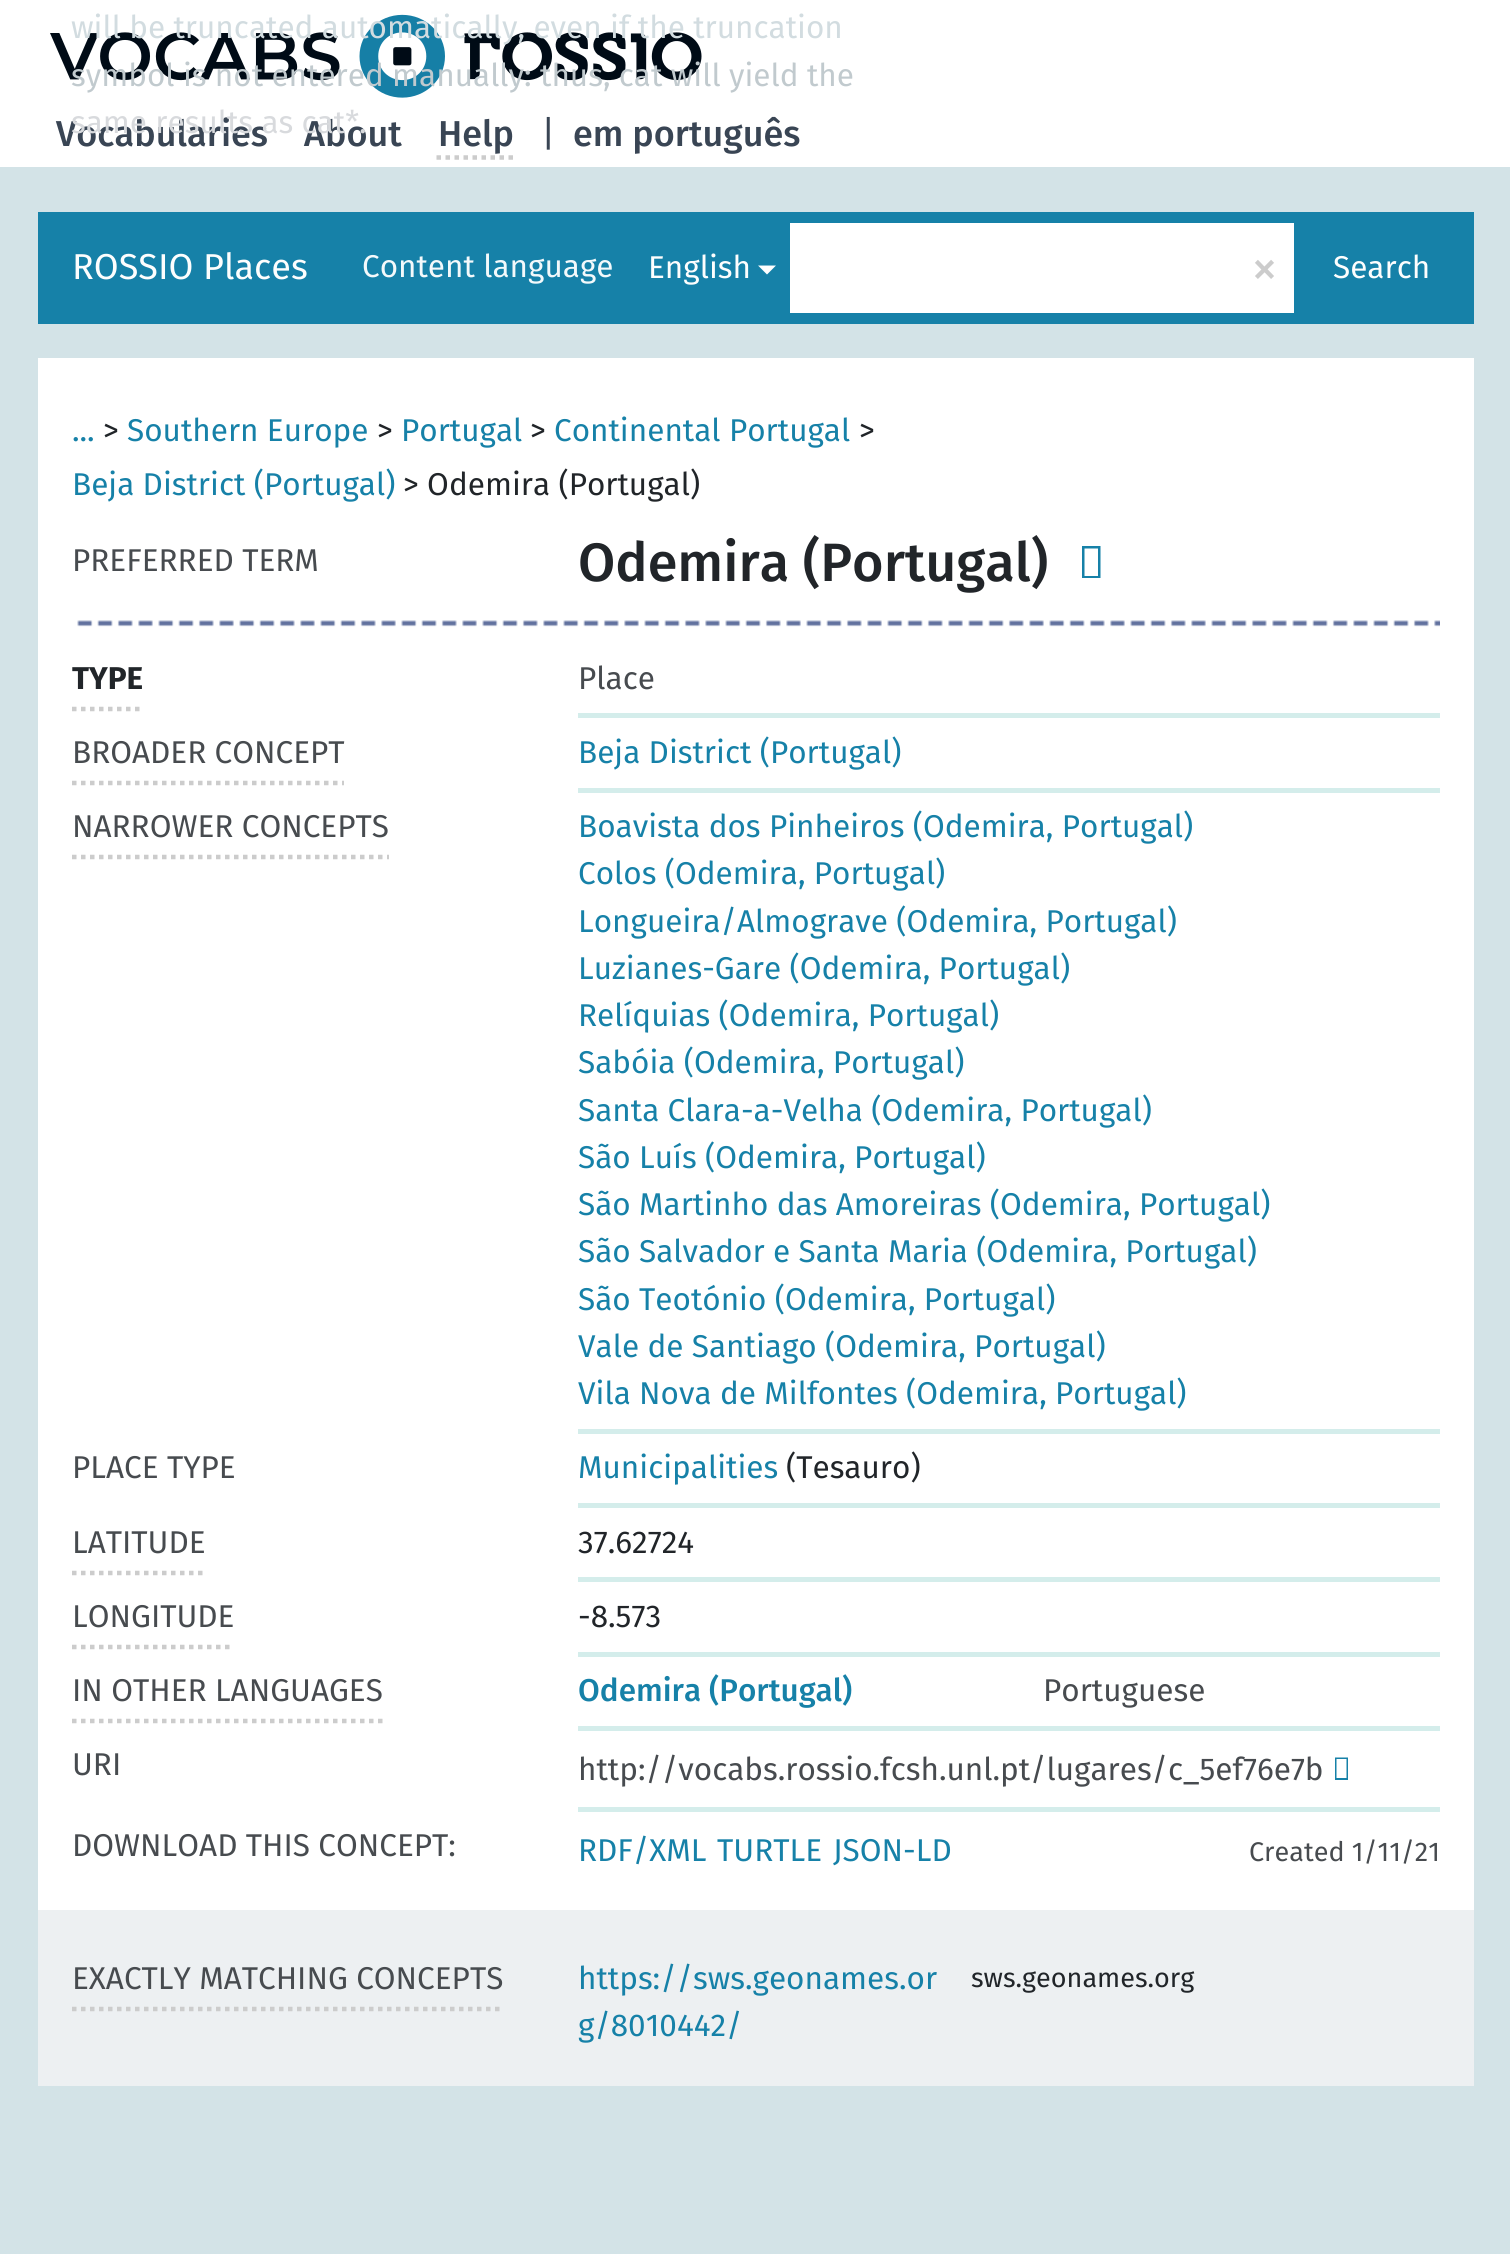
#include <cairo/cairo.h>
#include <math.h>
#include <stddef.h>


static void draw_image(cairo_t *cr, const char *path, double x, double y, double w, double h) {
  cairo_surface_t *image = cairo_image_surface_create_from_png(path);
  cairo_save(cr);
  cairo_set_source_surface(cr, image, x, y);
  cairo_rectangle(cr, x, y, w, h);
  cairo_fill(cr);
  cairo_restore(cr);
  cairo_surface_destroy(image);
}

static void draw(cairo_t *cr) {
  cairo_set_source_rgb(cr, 211 / 255.0, 227 / 255.0, 231 / 255.0);
  cairo_paint(cr);
  cairo_set_source_rgb(cr, 1, 1, 1);
  cairo_rectangle(cr, 0, 0, 1510, 167);
  cairo_fill(cr);
  cairo_new_path(cr);
  cairo_move_to(cr, 436.5, 157.5);
  cairo_line_to(cr, 513, 157.5);
  cairo_set_source_rgb(cr, 204 / 255.0, 204 / 255.0, 204 / 255.0);
  cairo_set_line_width(cr, 4.5);
  cairo_set_dash(cr, (double[]){4.5, 4.5}, 2, 0);
  cairo_stroke(cr);
  draw_image(cr, "images/1.png", 50, 14, 652, 84);
  cairo_set_source_rgb(cr, 22 / 255.0, 129 / 255.0, 168 / 255.0);
  cairo_rectangle(cr, 38, 212, 1436, 112);
  cairo_fill(cr);
  cairo_set_source_rgb(cr, 1, 1, 1);
  cairo_new_path(cr);
  cairo_move_to(cr, 758, 265.5);
  cairo_line_to(cr, 776, 265.5);
  cairo_line_to(cr, 767, 274.5);
  cairo_close_path(cr);
  cairo_fill(cr);
  cairo_rectangle(cr, 790, 223, 504, 90);
  cairo_fill(cr);
  cairo_rectangle(cr, 38, 358, 1436, 1552);
  cairo_fill(cr);
  cairo_set_source_rgb(cr, 22 / 255.0, 129 / 255.0, 168 / 255.0);
  cairo_new_path(cr);
  cairo_move_to(cr, 1082, 578);
  cairo_line_to(cr, 1082, 546);
  cairo_line_to(cr, 1100.5, 546);
  cairo_line_to(cr, 1100.5, 578);
  cairo_close_path(cr);
  cairo_move_to(cr, 1084.5, 576);
  cairo_line_to(cr, 1098, 576);
  cairo_line_to(cr, 1098, 548.5);
  cairo_line_to(cr, 1084.5, 548.5);
  cairo_close_path(cr);
  cairo_fill(cr);
  draw_image(cr, "images/2.png", 77, 620, 1363, 7);
  cairo_new_path(cr);
  cairo_move_to(cr, 72, 709);
  cairo_line_to(cr, 142, 709);
  cairo_set_source_rgb(cr, 204 / 255.0, 204 / 255.0, 204 / 255.0);
  cairo_stroke(cr);
  cairo_set_source_rgb(cr, 212 / 255.0, 237 / 255.0, 235 / 255.0);
  cairo_rectangle(cr, 578, 713, 862, 5);
  cairo_fill(cr);
  cairo_new_path(cr);
  cairo_move_to(cr, 72, 783);
  cairo_line_to(cr, 344, 783);
  cairo_set_source_rgb(cr, 204 / 255.0, 204 / 255.0, 204 / 255.0);
  cairo_stroke(cr);
  cairo_set_source_rgb(cr, 212 / 255.0, 237 / 255.0, 235 / 255.0);
  cairo_rectangle(cr, 578, 788, 862, 5);
  cairo_fill(cr);
  cairo_new_path(cr);
  cairo_move_to(cr, 72, 857);
  cairo_line_to(cr, 389, 857);
  cairo_set_source_rgb(cr, 204 / 255.0, 204 / 255.0, 204 / 255.0);
  cairo_stroke(cr);
  cairo_set_source_rgb(cr, 212 / 255.0, 237 / 255.0, 235 / 255.0);
  cairo_rectangle(cr, 578, 1429, 862, 5);
  cairo_fill(cr);
  cairo_rectangle(cr, 578, 1503, 862, 5);
  cairo_fill(cr);
  cairo_new_path(cr);
  cairo_move_to(cr, 72, 1573);
  cairo_line_to(cr, 205, 1573);
  cairo_set_source_rgb(cr, 204 / 255.0, 204 / 255.0, 204 / 255.0);
  cairo_stroke(cr);
  cairo_set_source_rgb(cr, 212 / 255.0, 237 / 255.0, 235 / 255.0);
  cairo_rectangle(cr, 578, 1577, 862, 5);
  cairo_fill(cr);
  cairo_new_path(cr);
  cairo_move_to(cr, 72, 1647);
  cairo_line_to(cr, 234, 1647);
  cairo_set_source_rgb(cr, 204 / 255.0, 204 / 255.0, 204 / 255.0);
  cairo_stroke(cr);
  cairo_set_source_rgb(cr, 212 / 255.0, 237 / 255.0, 235 / 255.0);
  cairo_rectangle(cr, 578, 1652, 862, 5);
  cairo_fill(cr);
  cairo_new_path(cr);
  cairo_move_to(cr, 72, 1721);
  cairo_line_to(cr, 382.5, 1721);
  cairo_set_source_rgb(cr, 204 / 255.0, 204 / 255.0, 204 / 255.0);
  cairo_stroke(cr);
  cairo_set_source_rgb(cr, 212 / 255.0, 237 / 255.0, 235 / 255.0);
  cairo_rectangle(cr, 578, 1726, 862, 5);
  cairo_fill(cr);
  cairo_rectangle(cr, 578, 1807, 862, 5);
  cairo_fill(cr);
  cairo_set_source_rgb(cr, 22 / 255.0, 129 / 255.0, 168 / 255.0);
  cairo_new_path(cr);
  cairo_move_to(cr, 1335, 1780);
  cairo_line_to(cr, 1335, 1757.5);
  cairo_line_to(cr, 1348, 1757.5);
  cairo_line_to(cr, 1348, 1780);
  cairo_close_path(cr);
  cairo_move_to(cr, 1336.5, 1778);
  cairo_line_to(cr, 1346.5, 1778);
  cairo_line_to(cr, 1346.5, 1759);
  cairo_line_to(cr, 1336.5, 1759);
  cairo_close_path(cr);
  cairo_fill(cr);
  cairo_set_source_rgb(cr, 237 / 255.0, 240 / 255.0, 242 / 255.0);
  cairo_rectangle(cr, 38, 1910, 1436, 176);
  cairo_fill(cr);
  cairo_new_path(cr);
  cairo_move_to(cr, 72, 2009);
  cairo_line_to(cr, 504, 2009);
  cairo_set_source_rgb(cr, 204 / 255.0, 204 / 255.0, 204 / 255.0);
  cairo_stroke(cr);
  cairo_select_font_face(cr, "Fira Sans", CAIRO_FONT_SLANT_NORMAL, CAIRO_FONT_WEIGHT_NORMAL);
  cairo_set_font_size(cr, 31.5);
  cairo_set_source_rgb(cr, 210 / 255.0, 220 / 255.0, 224 / 255.0);
  cairo_move_to(cr, 71, 38);
  cairo_show_text(cr, "will be truncated automatically, even if the truncation");
  cairo_set_source_rgb(cr, 193 / 255.0, 202 / 255.0, 206 / 255.0);
  cairo_move_to(cr, 71, 86);
  cairo_show_text(cr, "symbol is not entered manually: thus, cat will yield the");
  cairo_select_font_face(cr, "Fira Sans Medium", CAIRO_FONT_SLANT_NORMAL, CAIRO_FONT_WEIGHT_NORMAL);
  cairo_set_font_size(cr, 36);
  cairo_set_source_rgb(cr, 57 / 255.0, 69 / 255.0, 84 / 255.0);
  cairo_move_to(cr, 438, 146);
  cairo_show_text(cr, "Help");
  cairo_move_to(cr, 56, 146);
  cairo_show_text(cr, "Vocabularies");
  cairo_move_to(cr, 304, 146);
  cairo_show_text(cr, "About");
  cairo_select_font_face(cr, "Fira Sans", CAIRO_FONT_SLANT_NORMAL, CAIRO_FONT_WEIGHT_NORMAL);
  cairo_set_font_size(cr, 31.5);
  cairo_set_source_rgb(cr, 216 / 255.0, 218 / 255.0, 221 / 255.0);
  cairo_move_to(cr, 71, 133);
  cairo_show_text(cr, "same results as cat*.");
  cairo_set_font_size(cr, 36);
  cairo_set_source_rgb(cr, 57 / 255.0, 69 / 255.0, 84 / 255.0);
  cairo_move_to(cr, 541, 146);
  cairo_show_text(cr, "|");
  cairo_select_font_face(cr, "Fira Sans Medium", CAIRO_FONT_SLANT_NORMAL, CAIRO_FONT_WEIGHT_NORMAL);
  cairo_move_to(cr, 573, 146);
  cairo_show_text(cr, "em português");
  cairo_select_font_face(cr, "Fira Sans", CAIRO_FONT_SLANT_NORMAL, CAIRO_FONT_WEIGHT_NORMAL);
  cairo_set_source_rgb(cr, 253 / 255.0, 254 / 255.0, 254 / 255.0);
  cairo_move_to(cr, 72, 279);
  cairo_show_text(cr, "ROSSIO Places");
  cairo_set_font_size(cr, 31.5);
  cairo_set_source_rgb(cr, 243 / 255.0, 249 / 255.0, 251 / 255.0);
  cairo_move_to(cr, 362, 277);
  cairo_show_text(cr, "Content language");
  cairo_set_source_rgb(cr, 253 / 255.0, 254 / 255.0, 254 / 255.0);
  cairo_move_to(cr, 648, 278);
  cairo_show_text(cr, "English");
  cairo_set_font_size(cr, 54);
  cairo_set_source_rgb(cr, 204 / 255.0, 204 / 255.0, 204 / 255.0);
  cairo_move_to(cr, 1251, 286);
  cairo_show_text(cr, "×");
  cairo_set_font_size(cr, 31.5);
  cairo_set_source_rgb(cr, 253 / 255.0, 254 / 255.0, 254 / 255.0);
  cairo_move_to(cr, 1333, 278);
  cairo_show_text(cr, "Search");
  cairo_set_source_rgb(cr, 33 / 255.0, 37 / 255.0, 41 / 255.0);
  cairo_move_to(cr, 103, 441);
  cairo_show_text(cr, ">");
  cairo_set_source_rgb(cr, 22 / 255.0, 129 / 255.0, 168 / 255.0);
  cairo_move_to(cr, 127, 441);
  cairo_show_text(cr, "Southern Europe");
  cairo_set_source_rgb(cr, 33 / 255.0, 37 / 255.0, 41 / 255.0);
  cairo_move_to(cr, 377, 441);
  cairo_show_text(cr, ">");
  cairo_set_source_rgb(cr, 22 / 255.0, 129 / 255.0, 168 / 255.0);
  cairo_move_to(cr, 401, 441);
  cairo_show_text(cr, "Portugal");
  cairo_set_source_rgb(cr, 33 / 255.0, 37 / 255.0, 41 / 255.0);
  cairo_move_to(cr, 530, 441);
  cairo_show_text(cr, ">");
  cairo_set_source_rgb(cr, 22 / 255.0, 129 / 255.0, 168 / 255.0);
  cairo_move_to(cr, 554, 441);
  cairo_show_text(cr, "Continental Portugal");
  cairo_set_source_rgb(cr, 33 / 255.0, 37 / 255.0, 41 / 255.0);
  cairo_move_to(cr, 859, 441);
  cairo_show_text(cr, ">");
  cairo_set_source_rgb(cr, 22 / 255.0, 129 / 255.0, 168 / 255.0);
  cairo_move_to(cr, 72, 441);
  cairo_show_text(cr, "...");
  cairo_move_to(cr, 72, 495);
  cairo_show_text(cr, "Beja District (Portugal)");
  cairo_set_source_rgb(cr, 33 / 255.0, 37 / 255.0, 41 / 255.0);
  cairo_move_to(cr, 403, 495);
  cairo_show_text(cr, "> Odemira (Portugal)");
  cairo_set_source_rgb(cr, 71 / 255.0, 75 / 255.0, 79 / 255.0);
  cairo_move_to(cr, 72, 571);
  cairo_show_text(cr, "PREFERRED TERM");
  cairo_select_font_face(cr, "Fira Sans Medium", CAIRO_FONT_SLANT_NORMAL, CAIRO_FONT_WEIGHT_NORMAL);
  cairo_set_font_size(cr, 54);
  cairo_set_source_rgb(cr, 33 / 255.0, 37 / 255.0, 41 / 255.0);
  cairo_move_to(cr, 578, 581);
  cairo_show_text(cr, "Odemira (Portugal)");
  cairo_select_font_face(cr, "Fira Sans", CAIRO_FONT_SLANT_NORMAL, CAIRO_FONT_WEIGHT_BOLD);
  cairo_set_font_size(cr, 31.5);
  cairo_move_to(cr, 72, 689);
  cairo_show_text(cr, "TYPE");
  cairo_select_font_face(cr, "Fira Sans", CAIRO_FONT_SLANT_NORMAL, CAIRO_FONT_WEIGHT_NORMAL);
  cairo_set_source_rgb(cr, 71 / 255.0, 75 / 255.0, 79 / 255.0);
  cairo_move_to(cr, 578, 689);
  cairo_show_text(cr, "Place");
  cairo_move_to(cr, 72, 763);
  cairo_show_text(cr, "BROADER CONCEPT");
  cairo_set_source_rgb(cr, 22 / 255.0, 129 / 255.0, 168 / 255.0);
  cairo_move_to(cr, 578, 763);
  cairo_show_text(cr, "Beja District (Portugal)");
  cairo_set_source_rgb(cr, 71 / 255.0, 75 / 255.0, 79 / 255.0);
  cairo_move_to(cr, 72, 837);
  cairo_show_text(cr, "NARROWER CONCEPTS");
  cairo_set_source_rgb(cr, 22 / 255.0, 129 / 255.0, 168 / 255.0);
  cairo_move_to(cr, 578, 837);
  cairo_show_text(cr, "Boavista dos Pinheiros (Odemira, Portugal)");
  cairo_move_to(cr, 578, 884);
  cairo_show_text(cr, "Colos (Odemira, Portugal)");
  cairo_move_to(cr, 578, 932);
  cairo_show_text(cr, "Longueira/Almograve (Odemira, Portugal)");
  cairo_move_to(cr, 578, 979);
  cairo_show_text(cr, "Luzianes-Gare (Odemira, Portugal)");
  cairo_move_to(cr, 578, 1026);
  cairo_show_text(cr, "Relíquias (Odemira, Portugal)");
  cairo_move_to(cr, 578, 1073);
  cairo_show_text(cr, "Sabóia (Odemira, Portugal)");
  cairo_move_to(cr, 578, 1121);
  cairo_show_text(cr, "Santa Clara-a-Velha (Odemira, Portugal)");
  cairo_move_to(cr, 578, 1168);
  cairo_show_text(cr, "São Luís (Odemira, Portugal)");
  cairo_move_to(cr, 578, 1215);
  cairo_show_text(cr, "São Martinho das Amoreiras (Odemira, Portugal)");
  cairo_move_to(cr, 578, 1262);
  cairo_show_text(cr, "São Salvador e Santa Maria (Odemira, Portugal)");
  cairo_move_to(cr, 578, 1310);
  cairo_show_text(cr, "São Teotónio (Odemira, Portugal)");
  cairo_move_to(cr, 578, 1357);
  cairo_show_text(cr, "Vale de Santiago (Odemira, Portugal)");
  cairo_move_to(cr, 578, 1404);
  cairo_show_text(cr, "Vila Nova de Milfontes (Odemira, Portugal)");
  cairo_set_source_rgb(cr, 71 / 255.0, 75 / 255.0, 79 / 255.0);
  cairo_move_to(cr, 72, 1478);
  cairo_show_text(cr, "PLACE TYPE");
  cairo_set_source_rgb(cr, 22 / 255.0, 129 / 255.0, 168 / 255.0);
  cairo_move_to(cr, 578, 1478);
  cairo_show_text(cr, "Municipalities");
  cairo_set_source_rgb(cr, 33 / 255.0, 37 / 255.0, 41 / 255.0);
  cairo_move_to(cr, 786, 1478);
  cairo_show_text(cr, "(Tesauro)");
  cairo_set_source_rgb(cr, 71 / 255.0, 75 / 255.0, 79 / 255.0);
  cairo_move_to(cr, 72, 1553);
  cairo_show_text(cr, "LATITUDE");
  cairo_set_source_rgb(cr, 33 / 255.0, 37 / 255.0, 41 / 255.0);
  cairo_move_to(cr, 578, 1553);
  cairo_show_text(cr, "37.62724");
  cairo_set_source_rgb(cr, 71 / 255.0, 75 / 255.0, 79 / 255.0);
  cairo_move_to(cr, 72, 1627);
  cairo_show_text(cr, "LONGITUDE");
  cairo_set_source_rgb(cr, 33 / 255.0, 37 / 255.0, 41 / 255.0);
  cairo_move_to(cr, 578, 1627);
  cairo_show_text(cr, "-8.573");
  cairo_set_source_rgb(cr, 71 / 255.0, 75 / 255.0, 79 / 255.0);
  cairo_move_to(cr, 72, 1701);
  cairo_show_text(cr, "IN OTHER LANGUAGES");
  cairo_select_font_face(cr, "Fira Sans Medium", CAIRO_FONT_SLANT_NORMAL, CAIRO_FONT_WEIGHT_NORMAL);
  cairo_set_source_rgb(cr, 22 / 255.0, 129 / 255.0, 168 / 255.0);
  cairo_move_to(cr, 578, 1701);
  cairo_show_text(cr, "Odemira (Portugal)");
  cairo_select_font_face(cr, "Fira Sans", CAIRO_FONT_SLANT_NORMAL, CAIRO_FONT_WEIGHT_NORMAL);
  cairo_set_source_rgb(cr, 71 / 255.0, 75 / 255.0, 79 / 255.0);
  cairo_move_to(cr, 1043, 1701);
  cairo_show_text(cr, "Portuguese");
  cairo_move_to(cr, 72, 1775);
  cairo_show_text(cr, "URI");
  cairo_move_to(cr, 578, 1780);
  cairo_show_text(cr, "http://vocabs.rossio.fcsh.unl.pt/lugares/c_5ef76e7b");
  cairo_move_to(cr, 72, 1856);
  cairo_show_text(cr, "DOWNLOAD THIS CONCEPT:");
  cairo_set_source_rgb(cr, 22 / 255.0, 129 / 255.0, 168 / 255.0);
  cairo_move_to(cr, 578, 1861);
  cairo_show_text(cr, "RDF/XML");
  cairo_move_to(cr, 717, 1861);
  cairo_show_text(cr, "TURTLE");
  cairo_move_to(cr, 833, 1861);
  cairo_show_text(cr, "JSON-LD");
  cairo_set_font_size(cr, 27);
  cairo_set_source_rgb(cr, 71 / 255.0, 75 / 255.0, 79 / 255.0);
  cairo_move_to(cr, 1249, 1861);
  cairo_show_text(cr, "Created 1/11/21");
  cairo_set_font_size(cr, 31.5);
  cairo_move_to(cr, 72, 1989);
  cairo_show_text(cr, "EXACTLY MATCHING CONCEPTS");
  cairo_set_source_rgb(cr, 22 / 255.0, 129 / 255.0, 168 / 255.0);
  cairo_move_to(cr, 578, 1989);
  cairo_show_text(cr, "https://sws.geonames.or");
  cairo_move_to(cr, 578, 2036);
  cairo_show_text(cr, "g/8010442/");
  cairo_set_font_size(cr, 27);
  cairo_set_source_rgb(cr, 33 / 255.0, 37 / 255.0, 41 / 255.0);
  cairo_move_to(cr, 971, 1987);
  cairo_show_text(cr, "sws.geonames.org");
}

int main(void) {
  cairo_surface_t *surface = cairo_image_surface_create(CAIRO_FORMAT_RGB24, 1510, 2254);
  cairo_t *cr = cairo_create(surface);
  cairo_font_options_t *options = cairo_font_options_create();
  cairo_font_options_set_hint_metrics(options, CAIRO_HINT_METRICS_OFF);
  cairo_font_options_set_hint_style(options, CAIRO_HINT_STYLE_NONE);
  cairo_set_font_options(cr, options);
  cairo_set_miter_limit(cr, 4);
  draw(cr);
  cairo_surface_write_to_png(surface, "out.png");
  cairo_font_options_destroy(options);
  cairo_destroy(cr);
  cairo_surface_destroy(surface);
  return 0;
}
